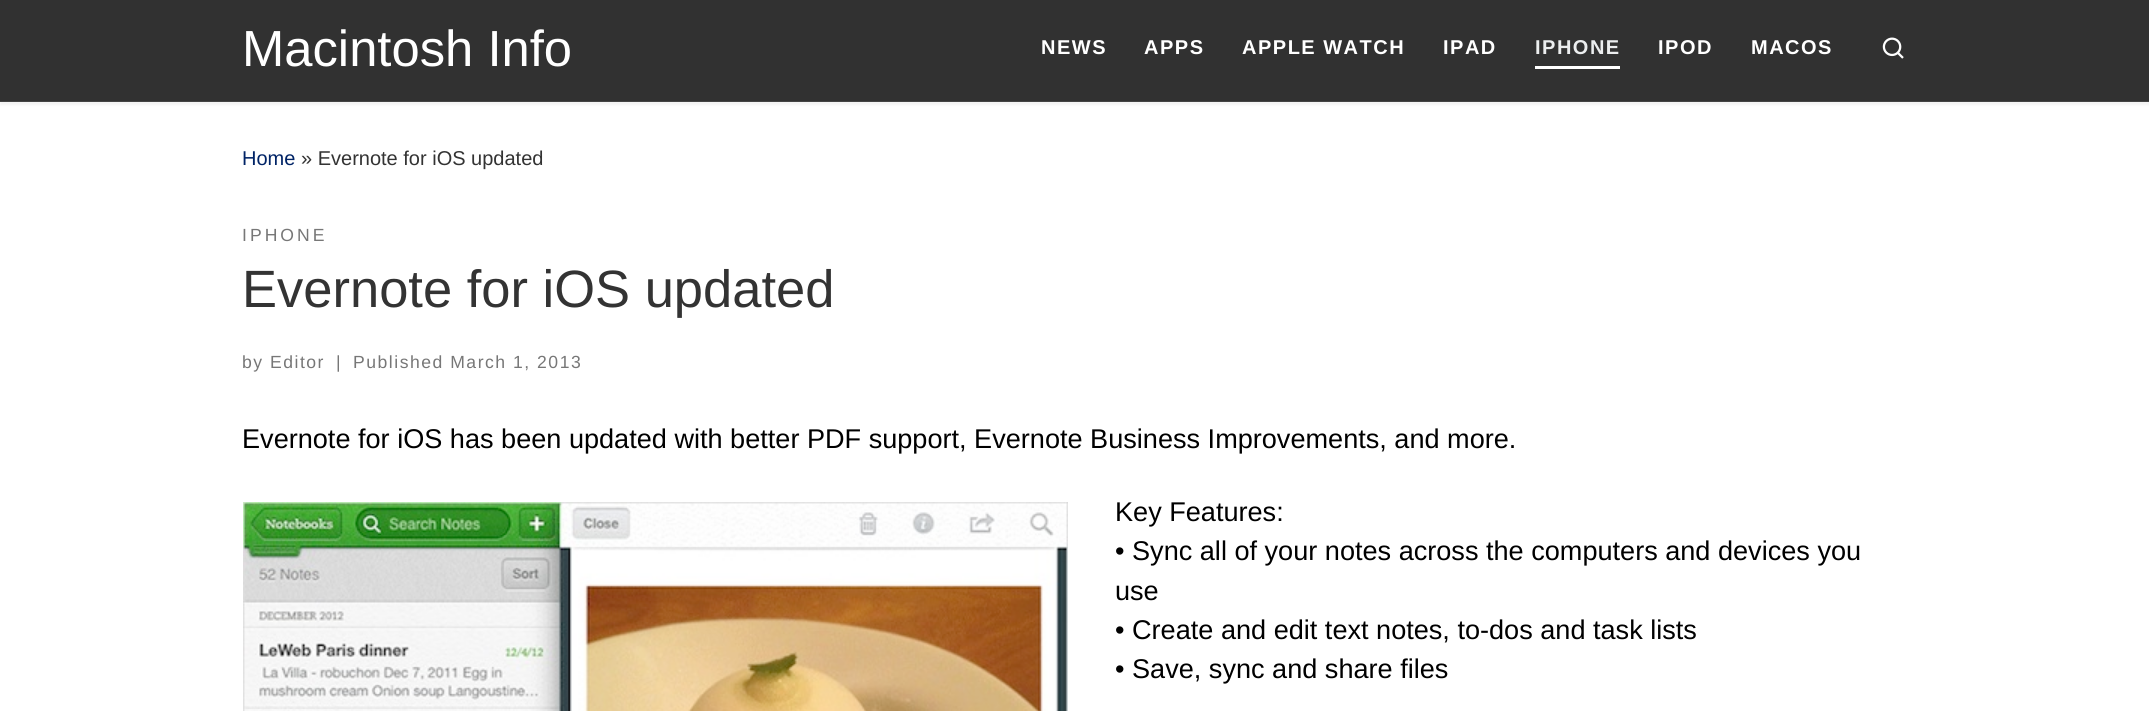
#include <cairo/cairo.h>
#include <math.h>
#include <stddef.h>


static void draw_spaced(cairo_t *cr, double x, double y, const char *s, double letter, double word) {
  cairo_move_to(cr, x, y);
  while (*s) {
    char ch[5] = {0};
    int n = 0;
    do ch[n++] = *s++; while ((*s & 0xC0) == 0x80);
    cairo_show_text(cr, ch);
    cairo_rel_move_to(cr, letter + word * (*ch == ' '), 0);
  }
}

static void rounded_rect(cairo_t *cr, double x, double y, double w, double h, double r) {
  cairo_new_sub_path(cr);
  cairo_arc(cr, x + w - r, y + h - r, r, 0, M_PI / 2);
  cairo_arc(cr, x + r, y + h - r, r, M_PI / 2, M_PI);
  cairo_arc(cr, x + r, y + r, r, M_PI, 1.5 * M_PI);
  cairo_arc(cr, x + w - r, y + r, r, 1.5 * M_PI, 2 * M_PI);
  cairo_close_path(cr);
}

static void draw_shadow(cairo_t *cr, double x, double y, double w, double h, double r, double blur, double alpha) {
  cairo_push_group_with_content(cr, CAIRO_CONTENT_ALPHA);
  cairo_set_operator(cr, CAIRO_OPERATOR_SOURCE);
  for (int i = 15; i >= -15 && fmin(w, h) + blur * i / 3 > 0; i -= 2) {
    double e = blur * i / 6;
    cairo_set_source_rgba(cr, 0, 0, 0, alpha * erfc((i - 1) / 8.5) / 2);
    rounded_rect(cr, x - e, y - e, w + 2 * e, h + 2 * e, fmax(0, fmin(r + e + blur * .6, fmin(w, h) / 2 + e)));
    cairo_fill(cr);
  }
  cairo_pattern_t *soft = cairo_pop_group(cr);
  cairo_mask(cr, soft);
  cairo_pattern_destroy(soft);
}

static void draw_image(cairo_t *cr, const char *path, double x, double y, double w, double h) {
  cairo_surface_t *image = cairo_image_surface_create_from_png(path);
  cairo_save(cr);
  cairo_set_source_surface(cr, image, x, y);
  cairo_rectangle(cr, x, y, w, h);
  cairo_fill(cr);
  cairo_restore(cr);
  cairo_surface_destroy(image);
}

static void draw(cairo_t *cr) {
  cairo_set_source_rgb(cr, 1, 1, 1);
  cairo_paint(cr);
  cairo_set_source_rgb(cr, 102 / 255.0, 102 / 255.0, 102 / 255.0);
  draw_shadow(cr, 0, -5, 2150, 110, 0, 1.5, 0.08);
  cairo_set_source_rgb(cr, 49 / 255.0, 49 / 255.0, 49 / 255.0);
  cairo_rectangle(cr, 0, 0, 2149, 102);
  cairo_fill(cr);
  cairo_set_source_rgba(cr, 1, 1, 1, 0.09);
  cairo_rectangle(cr, 0, 101, 2149, 1);
  cairo_fill(cr);
  cairo_set_source_rgb(cr, 1, 1, 1);
  cairo_rectangle(cr, 1535, 66, 85, 3);
  cairo_fill(cr);
  draw_image(cr, "images/1.png", 1882, 37, 22, 22);
  draw_image(cr, "images/2.png", 243, 502, 825, 209);
  cairo_select_font_face(cr, "Liberation Sans", CAIRO_FONT_SLANT_NORMAL, CAIRO_FONT_WEIGHT_NORMAL);
  cairo_set_font_size(cr, 50.75);
  cairo_move_to(cr, 242, 66);
  cairo_show_text(cr, "Macintosh Info");
  cairo_select_font_face(cr, "Liberation Sans", CAIRO_FONT_SLANT_NORMAL, CAIRO_FONT_WEIGHT_BOLD);
  cairo_set_font_size(cr, 20);
  draw_spaced(cr, 1041, 54, "NEWS", 1.5, 0);
  draw_spaced(cr, 1144, 54, "APPS", 1.5, 0);
  draw_spaced(cr, 1242, 54, "APPLE WATCH", 1.5, 0);
  draw_spaced(cr, 1443, 54, "IPAD", 1.5, 0);
  cairo_set_source_rgb(cr, 236 / 255.0, 238 / 255.0, 239 / 255.0);
  draw_spaced(cr, 1535, 54, "IPHONE", 1.5, 0);
  cairo_set_source_rgb(cr, 1, 1, 1);
  draw_spaced(cr, 1658, 54, "IPOD", 1.5, 0);
  draw_spaced(cr, 1751, 54, "MACOS", 1.5, 0);
  cairo_select_font_face(cr, "Liberation Sans", CAIRO_FONT_SLANT_NORMAL, CAIRO_FONT_WEIGHT_NORMAL);
  cairo_set_source_rgb(cr, 0, 35 / 255.0, 102 / 255.0);
  cairo_move_to(cr, 242, 165);
  cairo_show_text(cr, "Home");
  cairo_set_source_rgb(cr, 51 / 255.0, 51 / 255.0, 51 / 255.0);
  cairo_move_to(cr, 301, 165);
  cairo_show_text(cr, "» Evernote for iOS updated");
  cairo_set_font_size(cr, 17.6);
  cairo_set_source_rgb(cr, 119 / 255.0, 119 / 255.0, 119 / 255.0);
  draw_spaced(cr, 242, 241, "IPHONE", 3, 0);
  cairo_set_font_size(cr, 52.5);
  cairo_set_source_rgb(cr, 51 / 255.0, 51 / 255.0, 51 / 255.0);
  cairo_move_to(cr, 242, 307);
  cairo_show_text(cr, "Evernote for iOS updated");
  cairo_set_font_size(cr, 17.6);
  cairo_set_source_rgb(cr, 119 / 255.0, 119 / 255.0, 119 / 255.0);
  draw_spaced(cr, 242, 368, "by Editor", 1.5, 0);
  draw_spaced(cr, 336, 368, "|", 1.5, 0);
  draw_spaced(cr, 353, 368, "Published March 1, 2013", 1.5, 0);
  cairo_set_font_size(cr, 27.1);
  cairo_set_source_rgb(cr, 0, 0, 0);
  cairo_move_to(cr, 242, 448);
  cairo_show_text(cr, "Evernote for iOS has been updated with better PDF support, Evernote Business Improvements, and more.");
  cairo_move_to(cr, 1115, 521);
  cairo_show_text(cr, "Key Features:");
  cairo_move_to(cr, 1115, 560);
  cairo_show_text(cr, "• Sync all of your notes across the computers and devices you");
  cairo_move_to(cr, 1115, 600);
  cairo_show_text(cr, "use");
  cairo_move_to(cr, 1115, 639);
  cairo_show_text(cr, "• Create and edit text notes, to-dos and task lists");
  cairo_move_to(cr, 1115, 678);
  cairo_show_text(cr, "• Save, sync and share files");
}

int main(void) {
  cairo_surface_t *surface = cairo_image_surface_create(CAIRO_FORMAT_RGB24, 2149, 711);
  cairo_t *cr = cairo_create(surface);
  cairo_font_options_t *options = cairo_font_options_create();
  cairo_font_options_set_hint_metrics(options, CAIRO_HINT_METRICS_OFF);
  cairo_font_options_set_hint_style(options, CAIRO_HINT_STYLE_NONE);
  cairo_set_font_options(cr, options);
  cairo_set_miter_limit(cr, 4);
  draw(cr);
  cairo_surface_write_to_png(surface, "out.png");
  cairo_font_options_destroy(options);
  cairo_destroy(cr);
  cairo_surface_destroy(surface);
  return 0;
}
